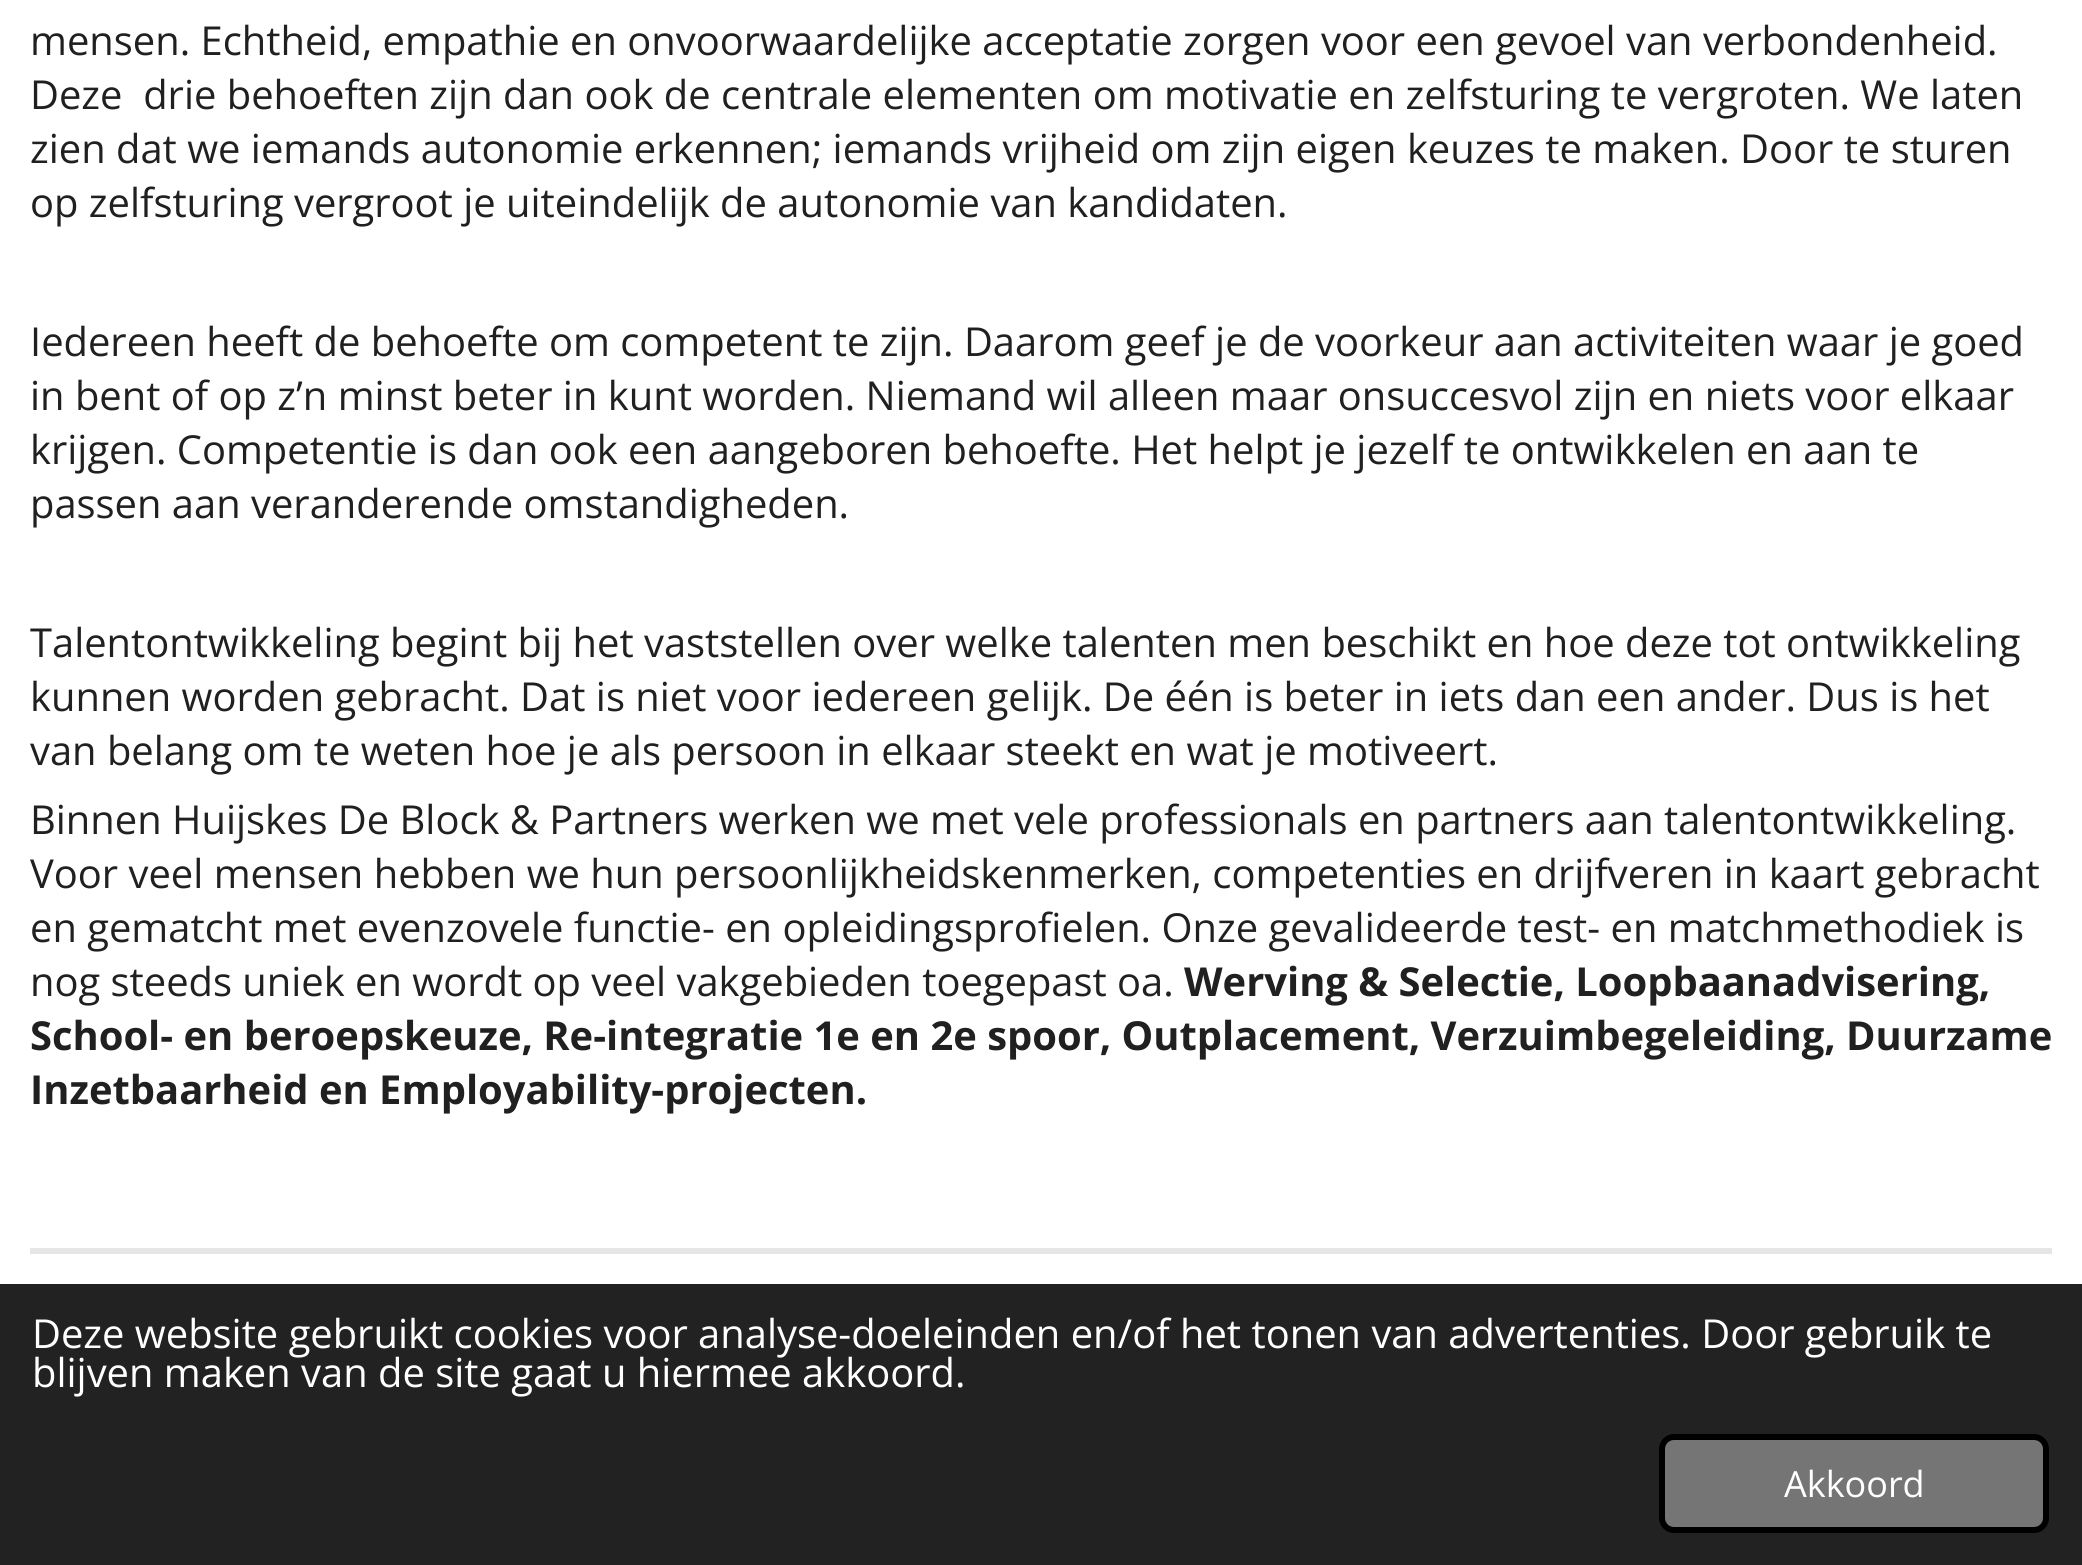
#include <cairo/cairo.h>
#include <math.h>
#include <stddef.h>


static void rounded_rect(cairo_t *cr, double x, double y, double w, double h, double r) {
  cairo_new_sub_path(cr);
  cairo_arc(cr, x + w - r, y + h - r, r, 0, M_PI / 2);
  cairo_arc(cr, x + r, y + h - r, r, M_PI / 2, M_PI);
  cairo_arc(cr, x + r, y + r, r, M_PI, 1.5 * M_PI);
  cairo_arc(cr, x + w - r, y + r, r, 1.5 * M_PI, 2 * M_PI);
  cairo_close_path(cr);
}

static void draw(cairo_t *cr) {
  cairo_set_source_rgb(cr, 1, 1, 1);
  cairo_paint(cr);
  cairo_set_source_rgb(cr, 230 / 255.0, 230 / 255.0, 230 / 255.0);
  cairo_rectangle(cr, 30, 1248, 2022, 6);
  cairo_fill(cr);
  cairo_set_source_rgb(cr, 34 / 255.0, 34 / 255.0, 34 / 255.0);
  cairo_rectangle(cr, 0, 1284, 2082, 281);
  cairo_fill(cr);
  cairo_set_source_rgb(cr, 117 / 255.0, 117 / 255.0, 117 / 255.0);
  rounded_rect(cr, 1662, 1437, 384, 93, 12);
  cairo_fill_preserve(cr);
  cairo_set_source_rgb(cr, 0, 0, 0);
  cairo_set_line_width(cr, 6);
  cairo_stroke(cr);
  cairo_select_font_face(cr, "Open Sans", CAIRO_FONT_SLANT_NORMAL, CAIRO_FONT_WEIGHT_NORMAL);
  cairo_set_font_size(cr, 39.9);
  cairo_set_source_rgb(cr, 32 / 255.0, 32 / 255.0, 32 / 255.0);
  cairo_move_to(cr, 30, 55);
  cairo_show_text(cr, "mensen. Echtheid, empathie en onvoorwaardelijke acceptatie zorgen voor een gevoel van verbondenheid.");
  cairo_move_to(cr, 30, 109);
  cairo_show_text(cr, "Deze  drie behoeften zijn dan ook de centrale elementen om motivatie en zelfsturing te vergroten. We laten");
  cairo_move_to(cr, 30, 163);
  cairo_show_text(cr, "zien dat we iemands autonomie erkennen; iemands vrijheid om zijn eigen keuzes te maken. Door te sturen");
  cairo_move_to(cr, 30, 217);
  cairo_show_text(cr, "op zelfsturing vergroot je uiteindelijk de autonomie van kandidaten.");
  cairo_move_to(cr, 30, 356);
  cairo_show_text(cr, "Iedereen heeft de behoefte om competent te zijn. Daarom geef je de voorkeur aan activiteiten waar je goed");
  cairo_move_to(cr, 30, 410);
  cairo_show_text(cr, "in bent of op z’n minst beter in kunt worden. Niemand wil alleen maar onsuccesvol zijn en niets voor elkaar");
  cairo_move_to(cr, 30, 464);
  cairo_show_text(cr, "krijgen. Competentie is dan ook een aangeboren behoefte. Het helpt je jezelf te ontwikkelen en aan te");
  cairo_move_to(cr, 30, 518);
  cairo_show_text(cr, "passen aan veranderende omstandigheden.");
  cairo_move_to(cr, 30, 657);
  cairo_show_text(cr, "Talentontwikkeling begint bij het vaststellen over welke talenten men beschikt en hoe deze tot ontwikkeling");
  cairo_move_to(cr, 30, 711);
  cairo_show_text(cr, "kunnen worden gebracht. Dat is niet voor iedereen gelijk. De één is beter in iets dan een ander. Dus is het");
  cairo_move_to(cr, 30, 765);
  cairo_show_text(cr, "van belang om te weten hoe je als persoon in elkaar steekt en wat je motiveert.");
  cairo_move_to(cr, 30, 834);
  cairo_show_text(cr, "Binnen Huijskes De Block & Partners werken we met vele professionals en partners aan talentontwikkeling.");
  cairo_move_to(cr, 30, 888);
  cairo_show_text(cr, "Voor veel mensen hebben we hun persoonlijkheidskenmerken, competenties en drijfveren in kaart gebracht");
  cairo_move_to(cr, 30, 942);
  cairo_show_text(cr, "en gematcht met evenzovele functie- en opleidingsprofielen. Onze gevalideerde test- en matchmethodiek is");
  cairo_move_to(cr, 30, 996);
  cairo_show_text(cr, "nog steeds uniek en wordt op veel vakgebieden toegepast oa.");
  cairo_select_font_face(cr, "Open Sans", CAIRO_FONT_SLANT_NORMAL, CAIRO_FONT_WEIGHT_BOLD);
  cairo_move_to(cr, 1184, 996);
  cairo_show_text(cr, "Werving & Selectie, Loopbaanadvisering,");
  cairo_move_to(cr, 30, 1050);
  cairo_show_text(cr, "School- en beroepskeuze, Re-integratie 1e en 2e spoor, Outplacement, Verzuimbegeleiding, Duurzame");
  cairo_move_to(cr, 30, 1104);
  cairo_show_text(cr, "Inzetbaarheid en Employability-projecten.");
  cairo_select_font_face(cr, "Open Sans", CAIRO_FONT_SLANT_NORMAL, CAIRO_FONT_WEIGHT_NORMAL);
  cairo_set_source_rgb(cr, 1, 1, 1);
  cairo_move_to(cr, 32, 1348);
  cairo_show_text(cr, "Deze website gebruikt cookies voor analyse-doeleinden en/of het tonen van advertenties. Door gebruik te");
  cairo_move_to(cr, 32, 1387);
  cairo_show_text(cr, "blijven maken van de site gaat u hiermee akkoord.");
  cairo_set_font_size(cr, 36);
  cairo_move_to(cr, 1784, 1497);
  cairo_show_text(cr, "Akkoord");
}

int main(void) {
  cairo_surface_t *surface = cairo_image_surface_create(CAIRO_FORMAT_RGB24, 2082, 1565);
  cairo_t *cr = cairo_create(surface);
  cairo_font_options_t *options = cairo_font_options_create();
  cairo_font_options_set_hint_metrics(options, CAIRO_HINT_METRICS_OFF);
  cairo_font_options_set_hint_style(options, CAIRO_HINT_STYLE_NONE);
  cairo_set_font_options(cr, options);
  cairo_set_miter_limit(cr, 4);
  draw(cr);
  cairo_surface_write_to_png(surface, "out.png");
  cairo_font_options_destroy(options);
  cairo_destroy(cr);
  cairo_surface_destroy(surface);
  return 0;
}
